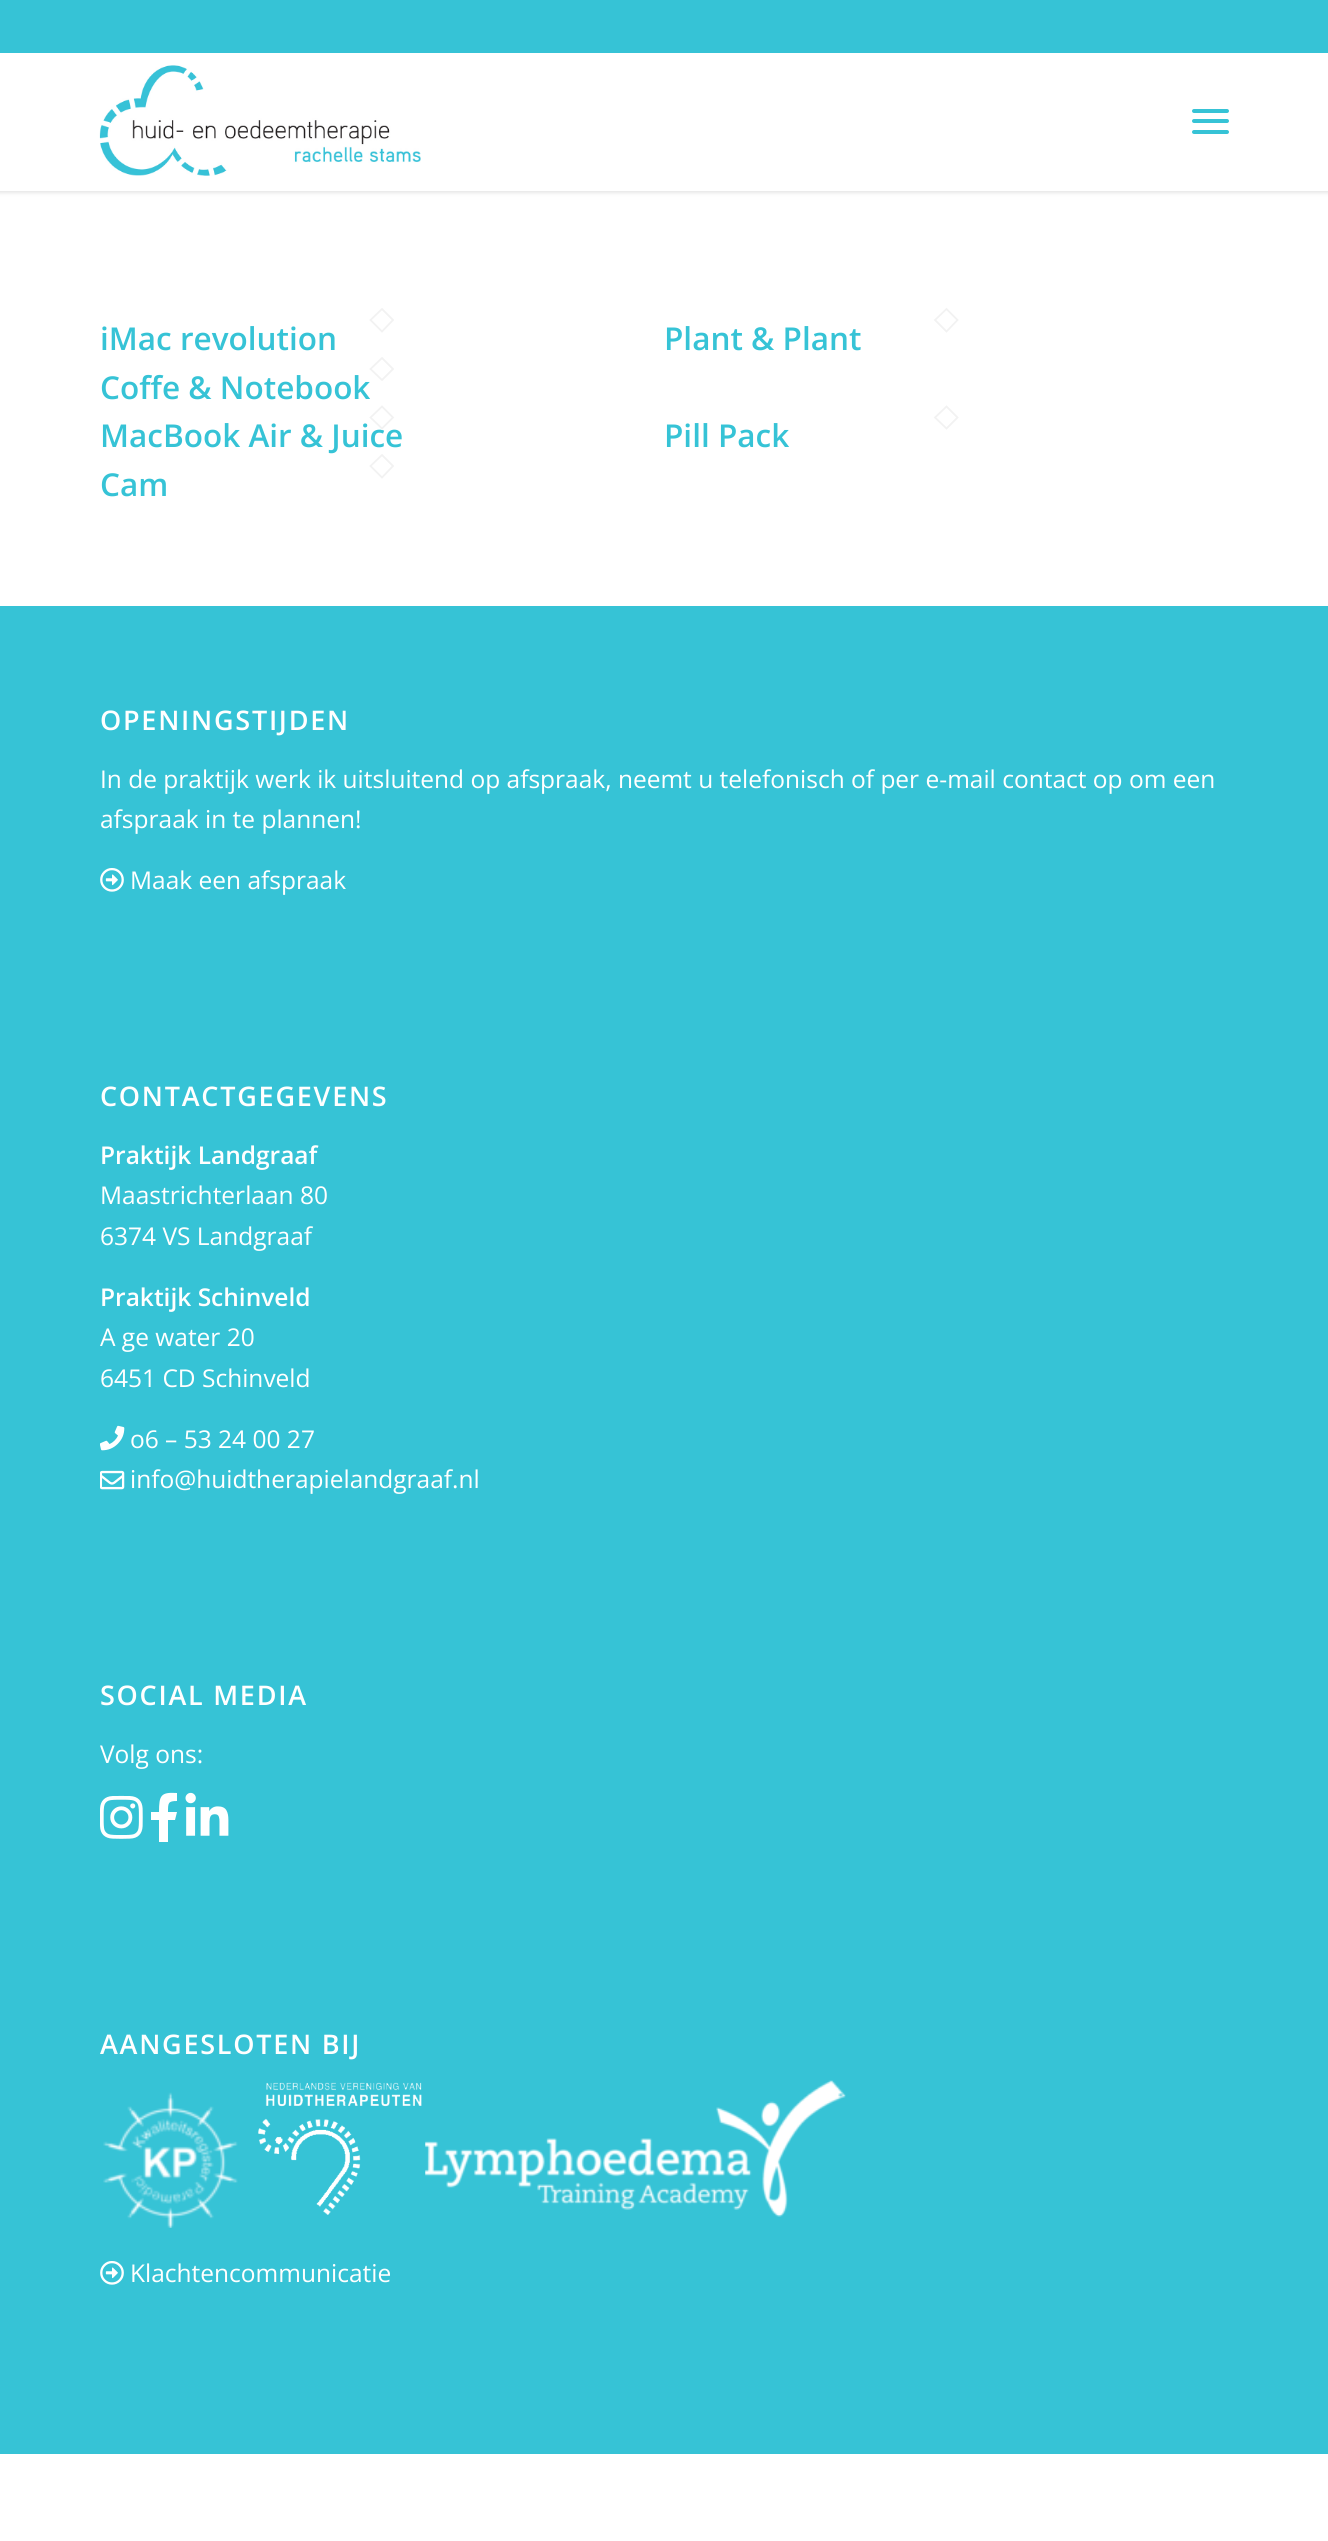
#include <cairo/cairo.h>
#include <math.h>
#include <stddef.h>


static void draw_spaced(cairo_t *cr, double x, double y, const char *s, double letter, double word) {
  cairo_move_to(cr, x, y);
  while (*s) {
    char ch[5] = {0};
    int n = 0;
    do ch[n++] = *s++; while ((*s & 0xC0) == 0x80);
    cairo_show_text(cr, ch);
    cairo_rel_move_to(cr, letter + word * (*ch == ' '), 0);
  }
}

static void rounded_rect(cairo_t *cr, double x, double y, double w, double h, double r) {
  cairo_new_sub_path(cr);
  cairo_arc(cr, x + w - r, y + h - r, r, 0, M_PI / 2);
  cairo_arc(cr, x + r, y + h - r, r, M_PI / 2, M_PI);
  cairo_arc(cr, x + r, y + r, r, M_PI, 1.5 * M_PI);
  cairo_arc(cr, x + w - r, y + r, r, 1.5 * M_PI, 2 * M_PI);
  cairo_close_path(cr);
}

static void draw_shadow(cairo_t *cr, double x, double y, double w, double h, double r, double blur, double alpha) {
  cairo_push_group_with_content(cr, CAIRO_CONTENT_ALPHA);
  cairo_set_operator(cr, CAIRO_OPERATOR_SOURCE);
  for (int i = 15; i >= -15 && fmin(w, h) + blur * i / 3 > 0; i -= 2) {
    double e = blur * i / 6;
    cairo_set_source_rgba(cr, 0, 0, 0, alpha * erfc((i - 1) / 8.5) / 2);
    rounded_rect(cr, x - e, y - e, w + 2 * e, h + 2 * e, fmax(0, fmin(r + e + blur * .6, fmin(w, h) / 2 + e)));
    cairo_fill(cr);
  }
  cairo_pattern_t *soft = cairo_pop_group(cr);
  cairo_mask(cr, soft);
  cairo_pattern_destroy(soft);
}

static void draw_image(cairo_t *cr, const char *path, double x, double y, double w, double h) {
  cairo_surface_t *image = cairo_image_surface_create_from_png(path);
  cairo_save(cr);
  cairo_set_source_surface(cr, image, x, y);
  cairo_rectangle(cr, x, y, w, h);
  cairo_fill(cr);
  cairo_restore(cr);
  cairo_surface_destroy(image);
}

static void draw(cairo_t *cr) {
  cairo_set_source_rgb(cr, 1, 1, 1);
  cairo_paint(cr);
  cairo_set_source_rgb(cr, 0, 0, 0);
  draw_shadow(cr, -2, -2, 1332, 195, 0, 2, 0.1);
  cairo_set_source_rgb(cr, 54 / 255.0, 195 / 255.0, 214 / 255.0);
  cairo_rectangle(cr, 0, 0, 1328, 53);
  cairo_fill(cr);
  cairo_set_source_rgb(cr, 1, 1, 1);
  cairo_rectangle(cr, 0, 53, 1328, 138);
  cairo_fill(cr);
  draw_image(cr, "images/1.png", 99, 65, 322, 111);
  cairo_set_source_rgb(cr, 54 / 255.0, 195 / 255.0, 214 / 255.0);
  rounded_rect(cr, 1192, 119, 37, 4, 2);
  cairo_fill(cr);
  rounded_rect(cr, 1192, 109, 37, 4, 2);
  cairo_fill(cr);
  rounded_rect(cr, 1192, 130, 37, 4, 2);
  cairo_fill(cr);
  cairo_new_path(cr);
  cairo_move_to(cr, 382, 309);
  cairo_line_to(cr, 393, 320);
  cairo_line_to(cr, 382, 331.5);
  cairo_line_to(cr, 370.5, 320);
  cairo_close_path(cr);
  cairo_set_source_rgb(cr, 242 / 255.0, 242 / 255.0, 242 / 255.0);
  cairo_set_line_width(cr, 1.8);
  cairo_stroke(cr);
  cairo_new_path(cr);
  cairo_move_to(cr, 946.5, 309);
  cairo_line_to(cr, 957.5, 320);
  cairo_line_to(cr, 946.5, 331.5);
  cairo_line_to(cr, 935, 320);
  cairo_close_path(cr);
  cairo_stroke(cr);
  cairo_new_path(cr);
  cairo_move_to(cr, 946.5, 406.5);
  cairo_line_to(cr, 957.5, 417.5);
  cairo_line_to(cr, 946.5, 428.5);
  cairo_line_to(cr, 935, 417.5);
  cairo_close_path(cr);
  cairo_stroke(cr);
  cairo_set_source_rgb(cr, 54 / 255.0, 195 / 255.0, 214 / 255.0);
  cairo_rectangle(cr, 0, 606, 1328, 1848);
  cairo_fill(cr);
  draw_image(cr, "images/2.png", 100, 868, 24, 24);
  draw_image(cr, "images/3.png", 100, 1425, 25, 26);
  draw_image(cr, "images/4.png", 100, 1470, 25, 20);
  draw_image(cr, "images/5.png", 100, 1795, 43, 44);
  cairo_set_source_rgb(cr, 1, 1, 1);
  cairo_new_path(cr);
  cairo_move_to(cr, 175, 1820);
  cairo_line_to(cr, 168, 1820);
  cairo_line_to(cr, 168, 1842);
  cairo_line_to(cr, 159, 1842);
  cairo_line_to(cr, 159, 1820);
  cairo_line_to(cr, 151, 1820);
  cairo_line_to(cr, 151, 1812);
  cairo_line_to(cr, 159, 1812);
  cairo_curve_to(cr, 159, 1795, 161, 1792, 177, 1793);
  cairo_line_to(cr, 177, 1801);
  cairo_curve_to(cr, 168, 1801, 168, 1803, 168, 1812);
  cairo_line_to(cr, 177, 1812);
  cairo_close_path(cr);
  cairo_fill(cr);
  draw_image(cr, "images/6.png", 185, 1792, 44, 44);
  draw_image(cr, "images/7.png", 103, 2092, 135, 136);
  draw_image(cr, "images/8.png", 258, 2082, 164, 133);
  draw_image(cr, "images/9.png", 425, 2080, 421, 137);
  draw_image(cr, "images/2.png", 100, 2261, 24, 24);
  cairo_select_font_face(cr, "Open Sans SemiBold", CAIRO_FONT_SLANT_NORMAL, CAIRO_FONT_WEIGHT_NORMAL);
  cairo_set_font_size(cr, 31.5);
  cairo_set_source_rgb(cr, 54 / 255.0, 195 / 255.0, 214 / 255.0);
  cairo_move_to(cr, 100, 350);
  cairo_show_text(cr, "iMac revolution");
  cairo_move_to(cr, 664, 350);
  cairo_show_text(cr, "Plant & Plant");
  cairo_move_to(cr, 100, 399);
  cairo_show_text(cr, "Coffe & Notebook");
  cairo_new_path(cr);
  cairo_move_to(cr, 382, 358);
  cairo_line_to(cr, 393, 369);
  cairo_line_to(cr, 382, 380);
  cairo_line_to(cr, 370.5, 369);
  cairo_close_path(cr);
  cairo_set_source_rgb(cr, 242 / 255.0, 242 / 255.0, 242 / 255.0);
  cairo_stroke(cr);
  cairo_set_source_rgb(cr, 54 / 255.0, 195 / 255.0, 214 / 255.0);
  cairo_move_to(cr, 100, 447);
  cairo_show_text(cr, "MacBook Air & Juice");
  cairo_set_source_rgb(cr, 1, 1, 1);
  cairo_new_path(cr);
  cairo_move_to(cr, 382, 405);
  cairo_line_to(cr, 394, 417.5);
  cairo_line_to(cr, 382, 430);
  cairo_line_to(cr, 369.5, 417.5);
  cairo_close_path(cr);
  cairo_fill(cr);
  cairo_new_path(cr);
  cairo_move_to(cr, 382, 406.5);
  cairo_line_to(cr, 393, 417.5);
  cairo_line_to(cr, 382, 428.5);
  cairo_line_to(cr, 370.5, 417.5);
  cairo_close_path(cr);
  cairo_set_source_rgb(cr, 242 / 255.0, 242 / 255.0, 242 / 255.0);
  cairo_stroke(cr);
  cairo_set_source_rgb(cr, 54 / 255.0, 195 / 255.0, 214 / 255.0);
  cairo_move_to(cr, 664, 447);
  cairo_show_text(cr, "Pill Pack");
  cairo_new_path(cr);
  cairo_move_to(cr, 382, 455);
  cairo_line_to(cr, 393, 466);
  cairo_line_to(cr, 382, 477.5);
  cairo_line_to(cr, 370.5, 466);
  cairo_close_path(cr);
  cairo_set_source_rgb(cr, 242 / 255.0, 242 / 255.0, 242 / 255.0);
  cairo_stroke(cr);
  cairo_set_source_rgb(cr, 54 / 255.0, 195 / 255.0, 214 / 255.0);
  cairo_move_to(cr, 100, 496);
  cairo_show_text(cr, "Cam");
  cairo_set_font_size(cr, 27);
  cairo_set_source_rgb(cr, 1, 1, 1);
  draw_spaced(cr, 100, 730, "OPENINGSTIJDEN", 1.75, 0);
  cairo_select_font_face(cr, "Open Sans", CAIRO_FONT_SLANT_NORMAL, CAIRO_FONT_WEIGHT_NORMAL);
  cairo_set_font_size(cr, 24.5);
  cairo_move_to(cr, 100, 788);
  cairo_show_text(cr, "In de praktijk werk ik uitsluitend op afspraak, neemt u telefonisch of per e-mail contact op om een");
  cairo_move_to(cr, 100, 828);
  cairo_show_text(cr, "afspraak in te plannen!");
  cairo_move_to(cr, 130, 889);
  cairo_show_text(cr, "Maak een afspraak");
  cairo_select_font_face(cr, "Open Sans SemiBold", CAIRO_FONT_SLANT_NORMAL, CAIRO_FONT_WEIGHT_NORMAL);
  cairo_set_font_size(cr, 27);
  draw_spaced(cr, 100, 1106, "CONTACTGEGEVENS", 1.75, 0);
  cairo_set_font_size(cr, 24.5);
  cairo_move_to(cr, 100, 1164);
  cairo_show_text(cr, "Praktijk Landgraaf");
  cairo_select_font_face(cr, "Open Sans", CAIRO_FONT_SLANT_NORMAL, CAIRO_FONT_WEIGHT_NORMAL);
  cairo_move_to(cr, 100, 1204);
  cairo_show_text(cr, "Maastrichterlaan 80");
  cairo_move_to(cr, 100, 1245);
  cairo_show_text(cr, "6374 VS Landgraaf");
  cairo_select_font_face(cr, "Open Sans SemiBold", CAIRO_FONT_SLANT_NORMAL, CAIRO_FONT_WEIGHT_NORMAL);
  cairo_move_to(cr, 100, 1306);
  cairo_show_text(cr, "Praktijk Schinveld");
  cairo_select_font_face(cr, "Open Sans", CAIRO_FONT_SLANT_NORMAL, CAIRO_FONT_WEIGHT_NORMAL);
  cairo_move_to(cr, 100, 1346);
  cairo_show_text(cr, "A ge water 20");
  cairo_move_to(cr, 100, 1387);
  cairo_show_text(cr, "6451 CD Schinveld");
  cairo_move_to(cr, 130, 1448);
  cairo_show_text(cr, "o6 – 53 24 00 27");
  cairo_move_to(cr, 130, 1488);
  cairo_show_text(cr, "info@huidtherapielandgraaf.nl");
  cairo_select_font_face(cr, "Open Sans SemiBold", CAIRO_FONT_SLANT_NORMAL, CAIRO_FONT_WEIGHT_NORMAL);
  cairo_set_font_size(cr, 27);
  draw_spaced(cr, 100, 1705, "SOCIAL MEDIA", 1.75, 0);
  cairo_select_font_face(cr, "Open Sans", CAIRO_FONT_SLANT_NORMAL, CAIRO_FONT_WEIGHT_NORMAL);
  cairo_set_font_size(cr, 24.5);
  cairo_move_to(cr, 100, 1763);
  cairo_show_text(cr, "Volg ons:");
  cairo_select_font_face(cr, "Open Sans SemiBold", CAIRO_FONT_SLANT_NORMAL, CAIRO_FONT_WEIGHT_NORMAL);
  cairo_set_font_size(cr, 27);
  draw_spaced(cr, 100, 2054, "AANGESLOTEN BIJ", 1.75, 0);
  cairo_select_font_face(cr, "Open Sans", CAIRO_FONT_SLANT_NORMAL, CAIRO_FONT_WEIGHT_NORMAL);
  cairo_set_font_size(cr, 24.5);
  cairo_move_to(cr, 130, 2282);
  cairo_show_text(cr, "Klachtencommunicatie");
}

int main(void) {
  cairo_surface_t *surface = cairo_image_surface_create(CAIRO_FORMAT_RGB24, 1328, 2541);
  cairo_t *cr = cairo_create(surface);
  cairo_font_options_t *options = cairo_font_options_create();
  cairo_font_options_set_hint_metrics(options, CAIRO_HINT_METRICS_OFF);
  cairo_font_options_set_hint_style(options, CAIRO_HINT_STYLE_NONE);
  cairo_set_font_options(cr, options);
  cairo_set_miter_limit(cr, 4);
  draw(cr);
  cairo_surface_write_to_png(surface, "out.png");
  cairo_font_options_destroy(options);
  cairo_destroy(cr);
  cairo_surface_destroy(surface);
  return 0;
}
